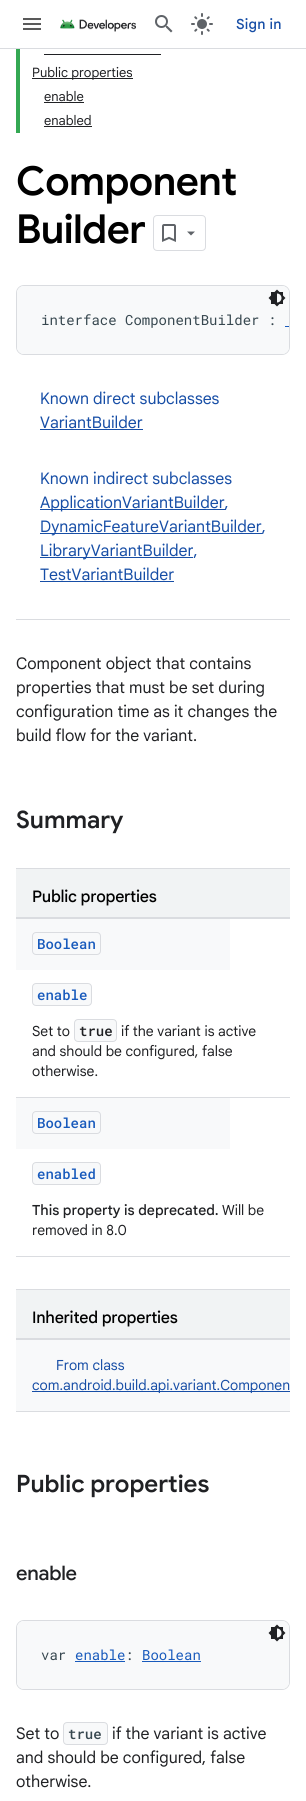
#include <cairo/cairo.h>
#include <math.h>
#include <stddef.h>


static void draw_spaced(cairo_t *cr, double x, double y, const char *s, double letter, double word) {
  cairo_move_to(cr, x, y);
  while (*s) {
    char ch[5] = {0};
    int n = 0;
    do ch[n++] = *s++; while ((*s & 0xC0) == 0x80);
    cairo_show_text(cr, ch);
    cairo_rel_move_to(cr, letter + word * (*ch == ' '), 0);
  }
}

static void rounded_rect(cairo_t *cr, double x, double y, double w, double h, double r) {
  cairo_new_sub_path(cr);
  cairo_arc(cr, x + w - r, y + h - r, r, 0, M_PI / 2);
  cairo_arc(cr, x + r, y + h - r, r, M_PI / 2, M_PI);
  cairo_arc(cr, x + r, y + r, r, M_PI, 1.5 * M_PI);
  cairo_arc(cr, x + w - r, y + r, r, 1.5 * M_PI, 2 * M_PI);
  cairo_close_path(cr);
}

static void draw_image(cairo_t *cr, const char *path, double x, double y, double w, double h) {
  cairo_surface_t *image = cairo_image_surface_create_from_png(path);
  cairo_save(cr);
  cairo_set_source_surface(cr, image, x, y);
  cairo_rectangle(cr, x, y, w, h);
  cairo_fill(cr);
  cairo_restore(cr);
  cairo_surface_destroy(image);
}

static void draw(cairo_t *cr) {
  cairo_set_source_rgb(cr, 1, 1, 1);
  cairo_paint(cr);
  cairo_set_source_rgb(cr, 218 / 255.0, 220 / 255.0, 224 / 255.0);
  cairo_rectangle(cr, 0, 48, 306, 1);
  cairo_fill(cr);
  draw_image(cr, "images/1.png", 23, 18, 18, 12);
  draw_image(cr, "images/2.png", 60, 19, 76, 13);
  draw_image(cr, "images/3.png", 155, 15, 18, 18);
  draw_image(cr, "images/4.png", 191, 13, 22, 22);
  cairo_set_source_rgb(cr, 52 / 255.0, 168 / 255.0, 83 / 255.0);
  cairo_rectangle(cr, 16, 49, 4, 84);
  cairo_fill(cr);
  cairo_set_source_rgb(cr, 32 / 255.0, 33 / 255.0, 36 / 255.0);
  cairo_rectangle(cr, 44, 54, 117, 1);
  cairo_fill(cr);
  cairo_rectangle(cr, 32, 78, 101, 1);
  cairo_fill(cr);
  cairo_rectangle(cr, 44, 102, 40, 1);
  cairo_fill(cr);
  cairo_rectangle(cr, 44, 126, 48, 1);
  cairo_fill(cr);
  rounded_rect(cr, 153.5, 215.5, 52, 35, 3.5);
  cairo_set_source_rgb(cr, 218 / 255.0, 220 / 255.0, 224 / 255.0);
  cairo_set_line_width(cr, 1);
  cairo_stroke(cr);
  draw_image(cr, "images/5.png", 162, 224, 14, 18);
  cairo_set_source_rgb(cr, 95 / 255.0, 99 / 255.0, 104 / 255.0);
  cairo_new_path(cr);
  cairo_move_to(cr, 187, 231.5);
  cairo_line_to(cr, 195, 231.5);
  cairo_line_to(cr, 191, 235.5);
  cairo_close_path(cr);
  cairo_fill(cr);
  rounded_rect(cr, 16.5, 285.5, 273, 69, 7.5);
  cairo_set_source_rgb(cr, 218 / 255.0, 220 / 255.0, 224 / 255.0);
  cairo_stroke(cr);
  cairo_set_source_rgb(cr, 248 / 255.0, 249 / 255.0, 250 / 255.0);
  rounded_rect(cr, 17, 286, 272, 68, 7);
  cairo_fill(cr);
  draw_image(cr, "images/6.png", 268, 289, 18, 18);
  cairo_set_source_rgb(cr, 24 / 255.0, 90 / 255.0, 188 / 255.0);
  cairo_rectangle(cr, 285, 326, 4, 1);
  cairo_fill(cr);
  cairo_set_source_rgb(cr, 23 / 255.0, 78 / 255.0, 166 / 255.0);
  cairo_rectangle(cr, 40, 429, 103, 1);
  cairo_fill(cr);
  cairo_rectangle(cr, 40, 509, 185, 1);
  cairo_fill(cr);
  cairo_rectangle(cr, 40, 533, 222, 1);
  cairo_fill(cr);
  cairo_rectangle(cr, 40, 557, 153, 1);
  cairo_fill(cr);
  cairo_rectangle(cr, 40, 581, 134, 1);
  cairo_fill(cr);
  cairo_set_source_rgb(cr, 218 / 255.0, 220 / 255.0, 224 / 255.0);
  cairo_rectangle(cr, 16, 619, 274, 1);
  cairo_fill(cr);
  cairo_rectangle(cr, 16, 868, 274, 1);
  cairo_fill(cr);
  cairo_rectangle(cr, 16, 917, 274, 2);
  cairo_fill(cr);
  cairo_set_source_rgb(cr, 241 / 255.0, 243 / 255.0, 244 / 255.0);
  cairo_rectangle(cr, 16, 869, 274, 48);
  cairo_fill(cr);
  cairo_set_source_rgb(cr, 218 / 255.0, 220 / 255.0, 224 / 255.0);
  cairo_rectangle(cr, 16, 1097, 274, 1);
  cairo_fill(cr);
  cairo_set_source_rgb(cr, 248 / 255.0, 249 / 255.0, 250 / 255.0);
  cairo_rectangle(cr, 16, 919, 214, 51);
  cairo_fill(cr);
  rounded_rect(cr, 32.5, 932.5, 68, 22, 3.5);
  cairo_set_source_rgb(cr, 218 / 255.0, 220 / 255.0, 224 / 255.0);
  cairo_stroke(cr);
  cairo_set_source_rgb(cr, 248 / 255.0, 249 / 255.0, 250 / 255.0);
  rounded_rect(cr, 32.5, 983.5, 59, 22, 3.5);
  cairo_fill_preserve(cr);
  cairo_set_source_rgb(cr, 218 / 255.0, 220 / 255.0, 224 / 255.0);
  cairo_stroke(cr);
  cairo_set_source_rgb(cr, 248 / 255.0, 249 / 255.0, 250 / 255.0);
  rounded_rect(cr, 74.5, 1019.5, 42, 22, 3.5);
  cairo_fill_preserve(cr);
  cairo_set_source_rgb(cr, 218 / 255.0, 220 / 255.0, 224 / 255.0);
  cairo_stroke(cr);
  cairo_rectangle(cr, 16, 1256, 274, 1);
  cairo_fill(cr);
  cairo_set_source_rgb(cr, 248 / 255.0, 249 / 255.0, 250 / 255.0);
  cairo_rectangle(cr, 16, 1098, 214, 51);
  cairo_fill(cr);
  rounded_rect(cr, 32.5, 1111.5, 68, 22, 3.5);
  cairo_set_source_rgb(cr, 218 / 255.0, 220 / 255.0, 224 / 255.0);
  cairo_stroke(cr);
  cairo_set_source_rgb(cr, 248 / 255.0, 249 / 255.0, 250 / 255.0);
  rounded_rect(cr, 32.5, 1162.5, 68, 22, 3.5);
  cairo_fill_preserve(cr);
  cairo_set_source_rgb(cr, 218 / 255.0, 220 / 255.0, 224 / 255.0);
  cairo_stroke(cr);
  cairo_rectangle(cr, 16, 1289, 274, 1);
  cairo_fill(cr);
  cairo_rectangle(cr, 16, 1338, 274, 2);
  cairo_fill(cr);
  cairo_set_source_rgb(cr, 241 / 255.0, 243 / 255.0, 244 / 255.0);
  cairo_rectangle(cr, 16, 1290, 274, 48);
  cairo_fill(cr);
  cairo_set_source_rgb(cr, 218 / 255.0, 220 / 255.0, 224 / 255.0);
  cairo_rectangle(cr, 16, 1411, 274, 1);
  cairo_fill(cr);
  cairo_set_source_rgb(cr, 248 / 255.0, 249 / 255.0, 250 / 255.0);
  cairo_rectangle(cr, 16, 1340, 274, 71);
  cairo_fill(cr);
  cairo_set_source_rgb(cr, 23 / 255.0, 78 / 255.0, 166 / 255.0);
  cairo_rectangle(cr, 32, 1391, 258, 1);
  cairo_fill(cr);
  rounded_rect(cr, 16.5, 1620.5, 273, 69, 7.5);
  cairo_set_source_rgb(cr, 218 / 255.0, 220 / 255.0, 224 / 255.0);
  cairo_stroke(cr);
  cairo_set_source_rgb(cr, 248 / 255.0, 249 / 255.0, 250 / 255.0);
  rounded_rect(cr, 17, 1621, 272, 68, 7);
  cairo_fill(cr);
  draw_image(cr, "images/6.png", 268, 1624, 18, 18);
  cairo_set_source_rgb(cr, 24 / 255.0, 90 / 255.0, 188 / 255.0);
  cairo_rectangle(cr, 75, 1661, 50, 1);
  cairo_fill(cr);
  cairo_rectangle(cr, 142, 1661, 59, 1);
  cairo_fill(cr);
  cairo_set_source_rgb(cr, 248 / 255.0, 249 / 255.0, 250 / 255.0);
  rounded_rect(cr, 63.5, 1722.5, 44, 22, 3.5);
  cairo_fill_preserve(cr);
  cairo_set_source_rgb(cr, 218 / 255.0, 220 / 255.0, 224 / 255.0);
  cairo_stroke(cr);
  cairo_select_font_face(cr, "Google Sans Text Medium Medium", CAIRO_FONT_SLANT_NORMAL, CAIRO_FONT_WEIGHT_NORMAL);
  cairo_set_font_size(cr, 14);
  cairo_set_source_rgb(cr, 23 / 255.0, 78 / 255.0, 166 / 255.0);
  draw_spaced(cr, 236, 29, "Sign in", 0.25, 0);
  cairo_select_font_face(cr, "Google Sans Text", CAIRO_FONT_SLANT_NORMAL, CAIRO_FONT_WEIGHT_NORMAL);
  cairo_set_font_size(cr, 13);
  cairo_set_source_rgb(cr, 32 / 255.0, 33 / 255.0, 36 / 255.0);
  cairo_move_to(cr, 32, 77);
  cairo_show_text(cr, "Public properties");
  cairo_move_to(cr, 44, 101);
  cairo_show_text(cr, "enable");
  cairo_move_to(cr, 44, 125);
  cairo_show_text(cr, "enabled");
  cairo_select_font_face(cr, "Google Sans SemiBold", CAIRO_FONT_SLANT_NORMAL, CAIRO_FONT_WEIGHT_NORMAL);
  cairo_set_font_size(cr, 40);
  cairo_set_source_rgb(cr, 0, 0, 0);
  draw_spaced(cr, 16, 195, "Component", -0.5, 0);
  draw_spaced(cr, 16, 243, "Builder", -0.5, 0);
  cairo_select_font_face(cr, "Roboto Mono", CAIRO_FONT_SLANT_NORMAL, CAIRO_FONT_WEIGHT_NORMAL);
  cairo_set_font_size(cr, 14);
  cairo_set_source_rgb(cr, 55 / 255.0, 71 / 255.0, 79 / 255.0);
  cairo_move_to(cr, 41, 325);
  cairo_show_text(cr, "interface ComponentBuilder :");
  cairo_select_font_face(cr, "Google Sans Text", CAIRO_FONT_SLANT_NORMAL, CAIRO_FONT_WEIGHT_NORMAL);
  cairo_set_font_size(cr, 16);
  cairo_set_source_rgb(cr, 23 / 255.0, 78 / 255.0, 166 / 255.0);
  cairo_move_to(cr, 40, 404);
  cairo_show_text(cr, "Known direct subclasses");
  cairo_move_to(cr, 40, 428);
  cairo_show_text(cr, "VariantBuilder");
  cairo_move_to(cr, 40, 484);
  cairo_show_text(cr, "Known indirect subclasses");
  cairo_move_to(cr, 40, 508);
  cairo_show_text(cr, "ApplicationVariantBuilder,");
  cairo_move_to(cr, 40, 532);
  cairo_show_text(cr, "DynamicFeatureVariantBuilder,");
  cairo_move_to(cr, 40, 556);
  cairo_show_text(cr, "LibraryVariantBuilder,");
  cairo_move_to(cr, 40, 580);
  cairo_show_text(cr, "TestVariantBuilder");
  cairo_set_source_rgb(cr, 32 / 255.0, 33 / 255.0, 36 / 255.0);
  cairo_move_to(cr, 16, 669);
  cairo_show_text(cr, "Component object that contains");
  cairo_move_to(cr, 16, 693);
  cairo_show_text(cr, "properties that must be set during");
  cairo_move_to(cr, 16, 717);
  cairo_show_text(cr, "configuration time as it changes the");
  cairo_move_to(cr, 16, 741);
  cairo_show_text(cr, "build flow for the variant.");
  cairo_select_font_face(cr, "Google Sans SemiBold", CAIRO_FONT_SLANT_NORMAL, CAIRO_FONT_WEIGHT_NORMAL);
  cairo_set_font_size(cr, 24);
  cairo_move_to(cr, 16, 828);
  cairo_show_text(cr, "Summary");
  cairo_select_font_face(cr, "Google Sans Text Medium Medium", CAIRO_FONT_SLANT_NORMAL, CAIRO_FONT_WEIGHT_NORMAL);
  cairo_set_font_size(cr, 16);
  cairo_set_source_rgb(cr, 0, 0, 0);
  draw_spaced(cr, 32, 902, "Public properties", -0.25, 0);
  cairo_select_font_face(cr, "Roboto Mono Medium", CAIRO_FONT_SLANT_NORMAL, CAIRO_FONT_WEIGHT_NORMAL);
  cairo_set_font_size(cr, 14);
  cairo_set_source_rgb(cr, 24 / 255.0, 90 / 255.0, 188 / 255.0);
  cairo_move_to(cr, 37, 949);
  cairo_show_text(cr, "Boolean");
  cairo_move_to(cr, 37, 1000);
  cairo_show_text(cr, "enable");
  cairo_select_font_face(cr, "Google Sans Text", CAIRO_FONT_SLANT_NORMAL, CAIRO_FONT_WEIGHT_NORMAL);
  cairo_set_source_rgb(cr, 32 / 255.0, 33 / 255.0, 36 / 255.0);
  cairo_move_to(cr, 32, 1036);
  cairo_show_text(cr, "Set to");
  cairo_select_font_face(cr, "Roboto Mono Medium", CAIRO_FONT_SLANT_NORMAL, CAIRO_FONT_WEIGHT_NORMAL);
  cairo_move_to(cr, 79, 1036);
  cairo_show_text(cr, "true");
  cairo_select_font_face(cr, "Google Sans Text", CAIRO_FONT_SLANT_NORMAL, CAIRO_FONT_WEIGHT_NORMAL);
  cairo_move_to(cr, 121, 1036);
  cairo_show_text(cr, "if the variant is active");
  cairo_move_to(cr, 32, 1056);
  cairo_show_text(cr, "and should be configured, false");
  cairo_move_to(cr, 32, 1076);
  cairo_show_text(cr, "otherwise.");
  cairo_select_font_face(cr, "Roboto Mono Medium", CAIRO_FONT_SLANT_NORMAL, CAIRO_FONT_WEIGHT_NORMAL);
  cairo_set_source_rgb(cr, 24 / 255.0, 90 / 255.0, 188 / 255.0);
  cairo_move_to(cr, 37, 1128);
  cairo_show_text(cr, "Boolean");
  cairo_move_to(cr, 37, 1179);
  cairo_show_text(cr, "enabled");
  cairo_select_font_face(cr, "Google Sans Text Medium Medium", CAIRO_FONT_SLANT_NORMAL, CAIRO_FONT_WEIGHT_NORMAL);
  cairo_set_source_rgb(cr, 32 / 255.0, 33 / 255.0, 36 / 255.0);
  cairo_move_to(cr, 32, 1215);
  cairo_show_text(cr, "This property is deprecated.");
  cairo_select_font_face(cr, "Google Sans Text", CAIRO_FONT_SLANT_NORMAL, CAIRO_FONT_WEIGHT_NORMAL);
  cairo_move_to(cr, 222, 1215);
  cairo_show_text(cr, "Will be");
  cairo_move_to(cr, 32, 1235);
  cairo_show_text(cr, "removed in 8.0");
  cairo_select_font_face(cr, "Google Sans Text Medium Medium", CAIRO_FONT_SLANT_NORMAL, CAIRO_FONT_WEIGHT_NORMAL);
  cairo_set_font_size(cr, 16);
  cairo_set_source_rgb(cr, 0, 0, 0);
  draw_spaced(cr, 32, 1323, "Inherited properties", -0.25, 0);
  cairo_select_font_face(cr, "Google Sans Text", CAIRO_FONT_SLANT_NORMAL, CAIRO_FONT_WEIGHT_NORMAL);
  cairo_set_font_size(cr, 14);
  cairo_set_source_rgb(cr, 23 / 255.0, 78 / 255.0, 166 / 255.0);
  cairo_move_to(cr, 56, 1370);
  cairo_show_text(cr, "From class");
  cairo_move_to(cr, 32, 1390);
  cairo_show_text(cr, "com.android.build.api.variant.Componen");
  cairo_select_font_face(cr, "Google Sans SemiBold", CAIRO_FONT_SLANT_NORMAL, CAIRO_FONT_WEIGHT_NORMAL);
  cairo_set_font_size(cr, 24);
  cairo_set_source_rgb(cr, 32 / 255.0, 33 / 255.0, 36 / 255.0);
  cairo_move_to(cr, 16, 1492);
  cairo_show_text(cr, "Public properties");
  cairo_select_font_face(cr, "Google Sans Medium", CAIRO_FONT_SLANT_NORMAL, CAIRO_FONT_WEIGHT_NORMAL);
  cairo_set_font_size(cr, 20);
  draw_spaced(cr, 16, 1580, "enable", -0.25, 0);
  cairo_select_font_face(cr, "Roboto Mono", CAIRO_FONT_SLANT_NORMAL, CAIRO_FONT_WEIGHT_NORMAL);
  cairo_set_font_size(cr, 14);
  cairo_set_source_rgb(cr, 55 / 255.0, 71 / 255.0, 79 / 255.0);
  cairo_move_to(cr, 41, 1660);
  cairo_show_text(cr, "var");
  cairo_set_source_rgb(cr, 24 / 255.0, 90 / 255.0, 188 / 255.0);
  cairo_move_to(cr, 75, 1660);
  cairo_show_text(cr, "enable");
  cairo_set_source_rgb(cr, 55 / 255.0, 71 / 255.0, 79 / 255.0);
  cairo_move_to(cr, 125, 1660);
  cairo_show_text(cr, ":");
  cairo_set_source_rgb(cr, 24 / 255.0, 90 / 255.0, 188 / 255.0);
  cairo_move_to(cr, 142, 1660);
  cairo_show_text(cr, "Boolean");
  cairo_select_font_face(cr, "Google Sans Text", CAIRO_FONT_SLANT_NORMAL, CAIRO_FONT_WEIGHT_NORMAL);
  cairo_set_font_size(cr, 16);
  cairo_set_source_rgb(cr, 32 / 255.0, 33 / 255.0, 36 / 255.0);
  cairo_move_to(cr, 16, 1739);
  cairo_show_text(cr, "Set to");
  cairo_select_font_face(cr, "Roboto Mono Medium", CAIRO_FONT_SLANT_NORMAL, CAIRO_FONT_WEIGHT_NORMAL);
  cairo_set_font_size(cr, 14);
  cairo_set_source_rgb(cr, 55 / 255.0, 71 / 255.0, 79 / 255.0);
  cairo_move_to(cr, 68, 1739);
  cairo_show_text(cr, "true");
  cairo_select_font_face(cr, "Google Sans Text", CAIRO_FONT_SLANT_NORMAL, CAIRO_FONT_WEIGHT_NORMAL);
  cairo_set_font_size(cr, 16);
  cairo_set_source_rgb(cr, 32 / 255.0, 33 / 255.0, 36 / 255.0);
  cairo_move_to(cr, 112, 1739);
  cairo_show_text(cr, "if the variant is active");
  cairo_move_to(cr, 16, 1763);
  cairo_show_text(cr, "and should be configured, false");
  cairo_move_to(cr, 16, 1787);
  cairo_show_text(cr, "otherwise.");
}

int main(void) {
  cairo_surface_t *surface = cairo_image_surface_create(CAIRO_FORMAT_RGB24, 306, 1801);
  cairo_t *cr = cairo_create(surface);
  cairo_font_options_t *options = cairo_font_options_create();
  cairo_font_options_set_hint_metrics(options, CAIRO_HINT_METRICS_OFF);
  cairo_font_options_set_hint_style(options, CAIRO_HINT_STYLE_NONE);
  cairo_set_font_options(cr, options);
  cairo_set_miter_limit(cr, 4);
  draw(cr);
  cairo_surface_write_to_png(surface, "out.png");
  cairo_font_options_destroy(options);
  cairo_destroy(cr);
  cairo_surface_destroy(surface);
  return 0;
}
